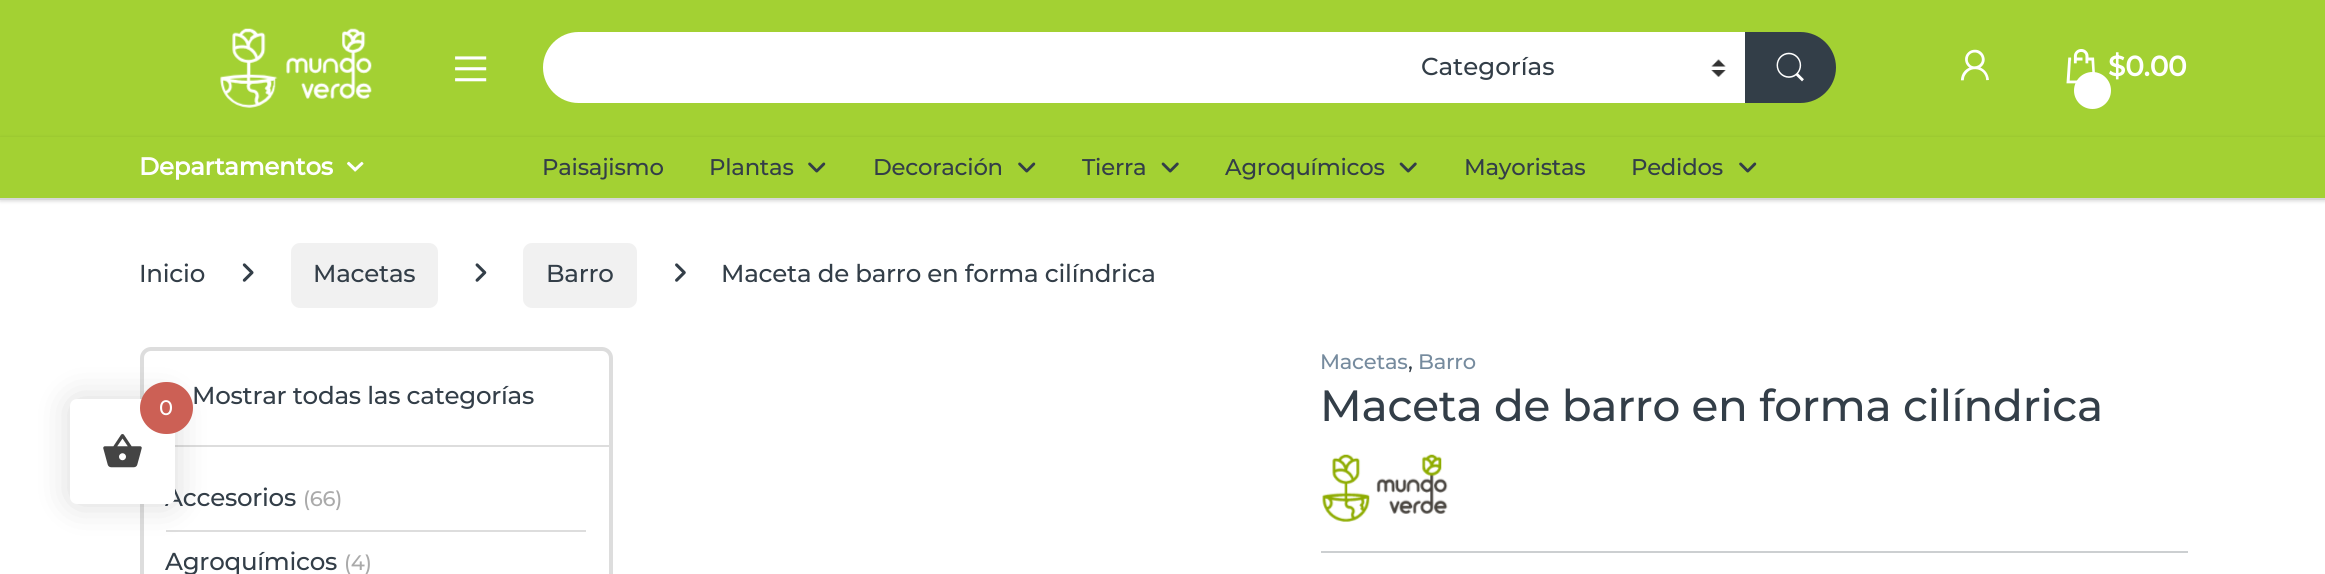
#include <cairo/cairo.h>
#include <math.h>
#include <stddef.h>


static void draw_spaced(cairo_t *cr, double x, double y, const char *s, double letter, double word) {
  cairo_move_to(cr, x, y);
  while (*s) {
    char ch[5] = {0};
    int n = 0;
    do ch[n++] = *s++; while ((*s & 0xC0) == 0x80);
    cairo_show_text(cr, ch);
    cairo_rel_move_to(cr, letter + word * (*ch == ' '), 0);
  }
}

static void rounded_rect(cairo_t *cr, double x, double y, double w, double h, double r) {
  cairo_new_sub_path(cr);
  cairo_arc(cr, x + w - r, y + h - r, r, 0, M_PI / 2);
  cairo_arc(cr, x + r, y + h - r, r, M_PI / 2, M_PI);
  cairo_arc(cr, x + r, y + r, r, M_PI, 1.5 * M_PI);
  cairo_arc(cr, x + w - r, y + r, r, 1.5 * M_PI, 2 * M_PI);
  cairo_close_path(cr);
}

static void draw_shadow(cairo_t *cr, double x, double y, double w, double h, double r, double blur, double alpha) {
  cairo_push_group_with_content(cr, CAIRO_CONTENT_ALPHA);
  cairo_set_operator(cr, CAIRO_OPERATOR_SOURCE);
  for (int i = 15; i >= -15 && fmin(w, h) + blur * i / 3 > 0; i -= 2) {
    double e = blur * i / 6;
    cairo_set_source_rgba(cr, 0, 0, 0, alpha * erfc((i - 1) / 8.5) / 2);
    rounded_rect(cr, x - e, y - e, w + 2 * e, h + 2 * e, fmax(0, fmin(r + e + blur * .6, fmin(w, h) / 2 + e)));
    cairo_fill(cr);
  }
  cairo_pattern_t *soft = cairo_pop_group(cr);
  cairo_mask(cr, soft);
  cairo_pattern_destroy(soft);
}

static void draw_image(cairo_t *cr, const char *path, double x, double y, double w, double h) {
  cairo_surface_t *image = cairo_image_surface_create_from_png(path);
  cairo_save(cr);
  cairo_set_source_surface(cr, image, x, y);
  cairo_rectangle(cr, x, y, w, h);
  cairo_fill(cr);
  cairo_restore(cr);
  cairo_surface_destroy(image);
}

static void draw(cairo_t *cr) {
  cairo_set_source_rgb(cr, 1, 1, 1);
  cairo_paint(cr);
  cairo_set_source_rgb(cr, 163 / 255.0, 209 / 255.0, 51 / 255.0);
  cairo_rectangle(cr, 0, 0, 2325, 137);
  cairo_fill(cr);
  draw_image(cr, "images/1.png", 220, 28, 152, 80);
  draw_image(cr, "images/2.png", 455, 56, 32, 26);
  cairo_set_source_rgb(cr, 1, 1, 1);
  cairo_new_path(cr);
  cairo_move_to(cr, 578.5, 32);
  cairo_line_to(cr, 1402, 32);
  cairo_line_to(cr, 1402, 103);
  cairo_line_to(cr, 578.5, 103);
  cairo_curve_to(cr, 559, 103, 543, 87, 543, 67.5);
  cairo_curve_to(cr, 543, 48, 559, 32, 578.5, 32);
  cairo_close_path(cr);
  cairo_fill(cr);
  cairo_rectangle(cr, 1402, 32, 343, 71);
  cairo_fill(cr);
  draw_image(cr, "images/3.png", 1711, 59, 15, 18);
  cairo_set_source_rgb(cr, 51 / 255.0, 62 / 255.0, 72 / 255.0);
  cairo_new_path(cr);
  cairo_move_to(cr, 1745, 32);
  cairo_line_to(cr, 1800.5, 32);
  cairo_curve_to(cr, 1820, 32, 1836, 48, 1836, 67.5);
  cairo_curve_to(cr, 1836, 87, 1820, 103, 1800.5, 103);
  cairo_line_to(cr, 1745, 103);
  cairo_close_path(cr);
  cairo_fill(cr);
  draw_image(cr, "images/4.png", 1776, 52, 28, 30);
  draw_image(cr, "images/5.png", 1960, 49, 29, 32);
  draw_image(cr, "images/6.png", 2066, 49, 29, 35);
  cairo_set_source_rgb(cr, 1, 1, 1);
  cairo_arc(cr, 2092.5, 90.5, 18.5, 0, 2 * M_PI);
  cairo_fill(cr);
  cairo_set_source_rgb(cr, 0, 0, 0);
  draw_shadow(cr, 0, 138, 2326, 63, 0, 2, 0.16);
  cairo_set_source_rgb(cr, 163 / 255.0, 209 / 255.0, 51 / 255.0);
  cairo_rectangle(cr, 0, 137, 2325, 61);
  cairo_fill(cr);
  cairo_set_source_rgb(cr, 215 / 255.0, 215 / 255.0, 215 / 255.0);
  cairo_rectangle(cr, 0, 198, 2325, 2);
  cairo_fill(cr);
  draw_image(cr, "images/7.png", 347, 161, 17, 11);
  draw_image(cr, "images/8.png", 808, 162, 18, 11);
  draw_image(cr, "images/8.png", 1018, 162, 18, 11);
  draw_image(cr, "images/9.png", 1161, 162, 18, 11);
  draw_image(cr, "images/9.png", 1399, 162, 18, 11);
  draw_image(cr, "images/8.png", 1739, 162, 18, 11);
  draw_image(cr, "images/10.png", 242, 263, 12, 19);
  cairo_set_source_rgb(cr, 241 / 255.0, 241 / 255.0, 241 / 255.0);
  rounded_rect(cr, 291, 243, 147, 65, 9);
  cairo_fill(cr);
  draw_image(cr, "images/11.png", 475, 263, 12, 19);
  rounded_rect(cr, 523, 243, 114, 65, 9);
  cairo_fill(cr);
  draw_image(cr, "images/12.png", 675, 263, 11, 19);
  rounded_rect(cr, 142, 349, 469, 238, 9);
  cairo_set_source_rgb(cr, 221 / 255.0, 221 / 255.0, 221 / 255.0);
  cairo_set_line_width(cr, 4);
  cairo_stroke(cr);
  cairo_rectangle(cr, 175, 445, 434, 2);
  cairo_fill(cr);
  cairo_rectangle(cr, 166, 530, 420, 2);
  cairo_fill(cr);
  draw_image(cr, "images/13.png", 1322, 454, 126, 68);
  cairo_set_source_rgb(cr, 204 / 255.0, 207 / 255.0, 209 / 255.0);
  cairo_rectangle(cr, 1321, 551, 867, 2);
  cairo_fill(cr);
  cairo_set_source_rgb(cr, 0, 0, 0);
  draw_shadow(cr, 70, 399, 105, 105, 7, 17.5, 0.15);
  cairo_select_font_face(cr, "Montserrat Thin", CAIRO_FONT_SLANT_NORMAL, CAIRO_FONT_WEIGHT_NORMAL);
  cairo_set_font_size(cr, 24.5);
  cairo_set_source_rgb(cr, 51 / 255.0, 62 / 255.0, 72 / 255.0);
  cairo_move_to(cr, 1421, 75);
  cairo_show_text(cr, "Categorías");
  cairo_select_font_face(cr, "Montserrat", CAIRO_FONT_SLANT_NORMAL, CAIRO_FONT_WEIGHT_BOLD);
  cairo_set_font_size(cr, 28);
  cairo_set_source_rgb(cr, 1, 1, 1);
  draw_spaced(cr, 2108, 76, "$0.00", -0.25, 0);
  cairo_set_font_size(cr, 24.5);
  draw_spaced(cr, 139, 175, "Departamentos", -0.25, 0);
  cairo_select_font_face(cr, "Montserrat Thin", CAIRO_FONT_SLANT_NORMAL, CAIRO_FONT_WEIGHT_NORMAL);
  cairo_set_font_size(cr, 22.75);
  cairo_set_source_rgb(cr, 51 / 255.0, 62 / 255.0, 72 / 255.0);
  draw_spaced(cr, 542, 175, "Paisajismo", -0.25, 0);
  draw_spaced(cr, 709, 175, "Plantas", -0.25, 0);
  draw_spaced(cr, 873, 175, "Decoración", -0.25, 0);
  draw_spaced(cr, 1082, 175, "Tierra", -0.25, 0);
  draw_spaced(cr, 1225, 175, "Agroquímicos", -0.25, 0);
  draw_spaced(cr, 1464, 175, "Mayoristas", -0.25, 0);
  draw_spaced(cr, 1631, 175, "Pedidos", -0.25, 0);
  cairo_set_font_size(cr, 24.5);
  draw_spaced(cr, 139, 282, "Inicio", -0.25, 0);
  draw_spaced(cr, 313, 282, "Macetas", -0.25, 0);
  draw_spaced(cr, 546, 282, "Barro", -0.25, 0);
  draw_spaced(cr, 721, 282, "Maceta de barro en forma cilíndrica", -0.25, 0);
  draw_spaced(cr, 192, 404, "Mostrar todas las categorías", -0.25, 0);
  draw_spaced(cr, 165, 506, "Accesorios", -0.25, 0);
  cairo_set_font_size(cr, 21);
  cairo_set_source_rgb(cr, 170 / 255.0, 170 / 255.0, 170 / 255.0);
  draw_spaced(cr, 303, 506, "(66)", -0.25, 0);
  cairo_set_font_size(cr, 24.5);
  cairo_set_source_rgb(cr, 51 / 255.0, 62 / 255.0, 72 / 255.0);
  draw_spaced(cr, 165, 570, "Agroquímicos", -0.25, 0);
  cairo_set_font_size(cr, 21);
  cairo_set_source_rgb(cr, 170 / 255.0, 170 / 255.0, 170 / 255.0);
  draw_spaced(cr, 344, 570, "(4)", -0.25, 0);
  cairo_set_source_rgb(cr, 118 / 255.0, 139 / 255.0, 158 / 255.0);
  draw_spaced(cr, 1320, 369, "Macetas", -0.25, 0);
  cairo_set_source_rgb(cr, 51 / 255.0, 62 / 255.0, 72 / 255.0);
  draw_spaced(cr, 1408, 369, ",", -0.25, 0);
  cairo_set_source_rgb(cr, 118 / 255.0, 139 / 255.0, 158 / 255.0);
  draw_spaced(cr, 1418, 369, "Barro", -0.25, 0);
  cairo_set_font_size(cr, 43.75);
  cairo_set_source_rgb(cr, 51 / 255.0, 62 / 255.0, 72 / 255.0);
  draw_spaced(cr, 1320, 421, "Maceta de barro en forma cilíndrica", -0.25, 0);
  cairo_set_source_rgb(cr, 1, 1, 1);
  rounded_rect(cr, 70, 399, 105, 105, 7);
  cairo_fill(cr);
  cairo_set_source_rgb(cr, 204 / 255.0, 96 / 255.0, 85 / 255.0);
  rounded_rect(cr, 140, 382, 53, 52, 26);
  cairo_fill(cr);
  cairo_set_font_size(cr, 21);
  cairo_set_source_rgb(cr, 1, 1, 1);
  draw_spaced(cr, 159, 415, "0", -0.25, 0);
  draw_image(cr, "images/14.png", 103, 434, 39, 34);
}

int main(void) {
  cairo_surface_t *surface = cairo_image_surface_create(CAIRO_FORMAT_RGB24, 2325, 574);
  cairo_t *cr = cairo_create(surface);
  cairo_font_options_t *options = cairo_font_options_create();
  cairo_font_options_set_hint_metrics(options, CAIRO_HINT_METRICS_OFF);
  cairo_font_options_set_hint_style(options, CAIRO_HINT_STYLE_NONE);
  cairo_set_font_options(cr, options);
  cairo_set_miter_limit(cr, 4);
  draw(cr);
  cairo_surface_write_to_png(surface, "out.png");
  cairo_font_options_destroy(options);
  cairo_destroy(cr);
  cairo_surface_destroy(surface);
  return 0;
}
